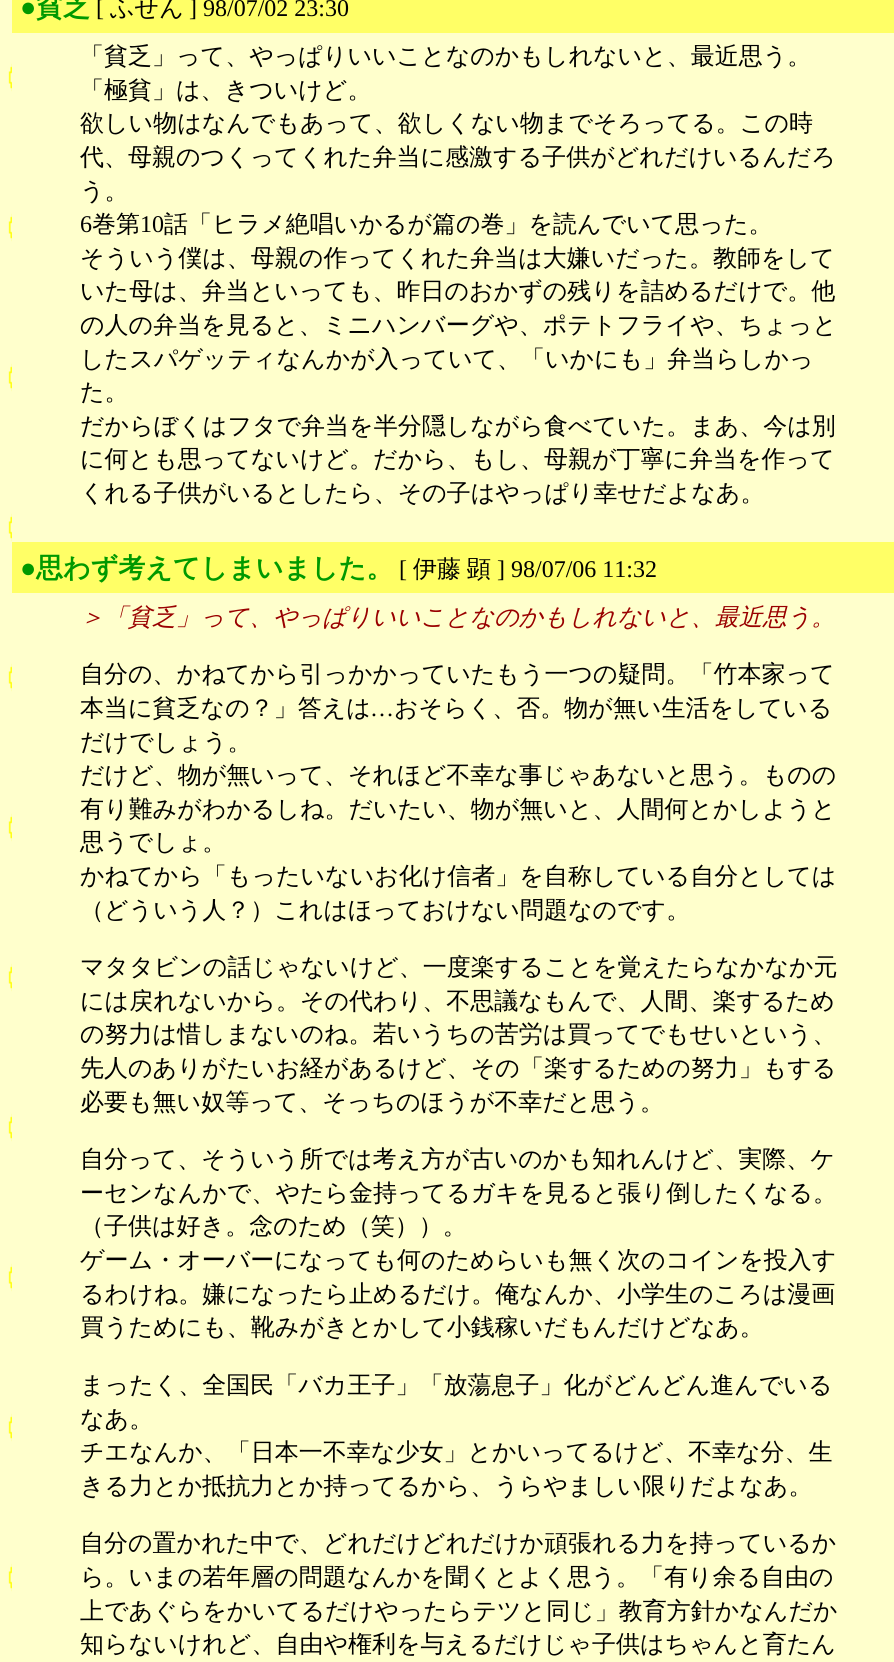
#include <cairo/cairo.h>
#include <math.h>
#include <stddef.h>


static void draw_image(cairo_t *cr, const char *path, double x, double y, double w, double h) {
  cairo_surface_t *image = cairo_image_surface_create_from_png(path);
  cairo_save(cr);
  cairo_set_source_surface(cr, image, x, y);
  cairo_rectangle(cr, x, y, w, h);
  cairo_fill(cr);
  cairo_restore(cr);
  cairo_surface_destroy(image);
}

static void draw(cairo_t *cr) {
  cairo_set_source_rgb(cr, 1, 1, 204 / 255.0);
  cairo_paint(cr);
  draw_image(cr, "images/1.png", 8, 0, 4, 1662);
  cairo_set_source_rgb(cr, 1, 1, 102 / 255.0);
  cairo_rectangle(cr, 12, 0, 882, 33);
  cairo_fill(cr);
  cairo_rectangle(cr, 12, 542, 882, 51);
  cairo_fill(cr);
  cairo_select_font_face(cr, "Liberation Serif", CAIRO_FONT_SLANT_NORMAL, CAIRO_FONT_WEIGHT_NORMAL);
  cairo_set_font_size(cr, 27);
  cairo_set_source_rgb(cr, 0, 153 / 255.0, 0);
  cairo_move_to(cr, 20, 16);
  cairo_show_text(cr, "●");
  cairo_select_font_face(cr, "WenQuanYi Zen Hei", CAIRO_FONT_SLANT_NORMAL, CAIRO_FONT_WEIGHT_BOLD);
  cairo_move_to(cr, 36, 16);
  cairo_show_text(cr, "貧乏");
  cairo_select_font_face(cr, "Liberation Serif", CAIRO_FONT_SLANT_NORMAL, CAIRO_FONT_WEIGHT_NORMAL);
  cairo_set_font_size(cr, 24);
  cairo_set_source_rgb(cr, 0, 0, 0);
  cairo_move_to(cr, 96, 16);
  cairo_show_text(cr, "[");
  cairo_select_font_face(cr, "WenQuanYi Zen Hei Medium", CAIRO_FONT_SLANT_NORMAL, CAIRO_FONT_WEIGHT_NORMAL);
  cairo_move_to(cr, 110, 16);
  cairo_show_text(cr, "ふせん");
  cairo_select_font_face(cr, "Liberation Serif", CAIRO_FONT_SLANT_NORMAL, CAIRO_FONT_WEIGHT_NORMAL);
  cairo_move_to(cr, 189, 16);
  cairo_show_text(cr, "] 98/07/02 23:30");
  cairo_select_font_face(cr, "WenQuanYi Zen Hei Medium", CAIRO_FONT_SLANT_NORMAL, CAIRO_FONT_WEIGHT_NORMAL);
  cairo_move_to(cr, 80, 64);
  cairo_show_text(cr, "「貧乏」って、やっぱりいいことなのかもしれないと、最近思う。");
  cairo_move_to(cr, 80, 98);
  cairo_show_text(cr, "「極貧」は、きついけど。");
  cairo_move_to(cr, 80, 131);
  cairo_show_text(cr, "欲しい物はなんでもあって、欲しくない物までそろってる。この時");
  cairo_move_to(cr, 80, 165);
  cairo_show_text(cr, "代、母親のつくってくれた弁当に感激する子供がどれだけいるんだろ");
  cairo_move_to(cr, 80, 199);
  cairo_show_text(cr, "う。");
  cairo_select_font_face(cr, "Liberation Serif", CAIRO_FONT_SLANT_NORMAL, CAIRO_FONT_WEIGHT_NORMAL);
  cairo_move_to(cr, 80, 232);
  cairo_show_text(cr, "6");
  cairo_select_font_face(cr, "WenQuanYi Zen Hei Medium", CAIRO_FONT_SLANT_NORMAL, CAIRO_FONT_WEIGHT_NORMAL);
  cairo_move_to(cr, 92, 232);
  cairo_show_text(cr, "巻第");
  cairo_select_font_face(cr, "Liberation Serif", CAIRO_FONT_SLANT_NORMAL, CAIRO_FONT_WEIGHT_NORMAL);
  cairo_move_to(cr, 140, 232);
  cairo_show_text(cr, "10");
  cairo_select_font_face(cr, "WenQuanYi Zen Hei Medium", CAIRO_FONT_SLANT_NORMAL, CAIRO_FONT_WEIGHT_NORMAL);
  cairo_move_to(cr, 164, 232);
  cairo_show_text(cr, "話「ヒラメ絶唱いかるが篇の巻」を読んでいて思った。");
  cairo_move_to(cr, 80, 266);
  cairo_show_text(cr, "そういう僕は、母親の作ってくれた弁当は大嫌いだった。教師をして");
  cairo_move_to(cr, 80, 299);
  cairo_show_text(cr, "いた母は、弁当といっても、昨日のおかずの残りを詰めるだけで。他");
  cairo_move_to(cr, 80, 333);
  cairo_show_text(cr, "の人の弁当を見ると、ミニハンバーグや、ポテトフライや、ちょっと");
  cairo_move_to(cr, 80, 367);
  cairo_show_text(cr, "したスパゲッティなんかが入っていて、「いかにも」弁当らしかっ");
  cairo_move_to(cr, 80, 400);
  cairo_show_text(cr, "た。");
  cairo_move_to(cr, 80, 434);
  cairo_show_text(cr, "だからぼくはフタで弁当を半分隠しながら食べていた。まあ、今は別");
  cairo_move_to(cr, 80, 467);
  cairo_show_text(cr, "に何とも思ってないけど。だから、もし、母親が丁寧に弁当を作って");
  cairo_move_to(cr, 80, 501);
  cairo_show_text(cr, "くれる子供がいるとしたら、その子はやっぱり幸せだよなあ。");
  cairo_select_font_face(cr, "Liberation Serif", CAIRO_FONT_SLANT_NORMAL, CAIRO_FONT_WEIGHT_NORMAL);
  cairo_set_font_size(cr, 27);
  cairo_set_source_rgb(cr, 0, 153 / 255.0, 0);
  cairo_move_to(cr, 20, 577);
  cairo_show_text(cr, "●");
  cairo_select_font_face(cr, "WenQuanYi Zen Hei", CAIRO_FONT_SLANT_NORMAL, CAIRO_FONT_WEIGHT_BOLD);
  cairo_move_to(cr, 36, 577);
  cairo_show_text(cr, "思わず考えてしまいました。");
  cairo_select_font_face(cr, "Liberation Serif", CAIRO_FONT_SLANT_NORMAL, CAIRO_FONT_WEIGHT_NORMAL);
  cairo_set_font_size(cr, 24);
  cairo_set_source_rgb(cr, 0, 0, 0);
  cairo_move_to(cr, 399, 577);
  cairo_show_text(cr, "[");
  cairo_select_font_face(cr, "WenQuanYi Zen Hei Medium", CAIRO_FONT_SLANT_NORMAL, CAIRO_FONT_WEIGHT_NORMAL);
  cairo_move_to(cr, 413, 577);
  cairo_show_text(cr, "伊藤");
  cairo_move_to(cr, 467, 577);
  cairo_show_text(cr, "顕");
  cairo_select_font_face(cr, "Liberation Serif", CAIRO_FONT_SLANT_NORMAL, CAIRO_FONT_WEIGHT_NORMAL);
  cairo_move_to(cr, 497, 577);
  cairo_show_text(cr, "] 98/07/06 11:32");
  cairo_select_font_face(cr, "WenQuanYi Zen Hei Medium", CAIRO_FONT_SLANT_ITALIC, CAIRO_FONT_WEIGHT_NORMAL);
  cairo_set_source_rgb(cr, 153 / 255.0, 0, 0);
  cairo_move_to(cr, 80, 625);
  cairo_show_text(cr, "＞「貧乏」って、やっぱりいいことなのかもしれないと、最近思う。");
  cairo_select_font_face(cr, "WenQuanYi Zen Hei Medium", CAIRO_FONT_SLANT_NORMAL, CAIRO_FONT_WEIGHT_NORMAL);
  cairo_set_source_rgb(cr, 0, 0, 0);
  cairo_move_to(cr, 80, 682);
  cairo_show_text(cr, "自分の、かねてから引っかかっていたもう一つの疑問。「竹本家って");
  cairo_move_to(cr, 80, 716);
  cairo_show_text(cr, "本当に貧乏なの？」答えは");
  cairo_select_font_face(cr, "Liberation Serif", CAIRO_FONT_SLANT_NORMAL, CAIRO_FONT_WEIGHT_NORMAL);
  cairo_move_to(cr, 370, 716);
  cairo_show_text(cr, "…");
  cairo_select_font_face(cr, "WenQuanYi Zen Hei Medium", CAIRO_FONT_SLANT_NORMAL, CAIRO_FONT_WEIGHT_NORMAL);
  cairo_move_to(cr, 394, 716);
  cairo_show_text(cr, "おそらく、否。物が無い生活をしている");
  cairo_move_to(cr, 80, 750);
  cairo_show_text(cr, "だけでしょう。");
  cairo_move_to(cr, 80, 783);
  cairo_show_text(cr, "だけど、物が無いって、それほど不幸な事じゃあないと思う。ものの");
  cairo_move_to(cr, 80, 817);
  cairo_show_text(cr, "有り難みがわかるしね。だいたい、物が無いと、人間何とかしようと");
  cairo_move_to(cr, 80, 850);
  cairo_show_text(cr, "思うでしょ。");
  cairo_move_to(cr, 80, 884);
  cairo_show_text(cr, "かねてから「もったいないお化け信者」を自称している自分としては");
  cairo_move_to(cr, 80, 918);
  cairo_show_text(cr, "（どういう人？）これはほっておけない問題なのです。");
  cairo_move_to(cr, 80, 975);
  cairo_show_text(cr, "マタタビンの話じゃないけど、一度楽することを覚えたらなかなか元");
  cairo_move_to(cr, 80, 1009);
  cairo_show_text(cr, "には戻れないから。その代わり、不思議なもんで、人間、楽するため");
  cairo_move_to(cr, 80, 1042);
  cairo_show_text(cr, "の努力は惜しまないのね。若いうちの苦労は買ってでもせいという、");
  cairo_move_to(cr, 80, 1076);
  cairo_show_text(cr, "先人のありがたいお経があるけど、その「楽するための努力」もする");
  cairo_move_to(cr, 80, 1110);
  cairo_show_text(cr, "必要も無い奴等って、そっちのほうが不幸だと思う。");
  cairo_move_to(cr, 80, 1167);
  cairo_show_text(cr, "自分って、そういう所では考え方が古いのかも知れんけど、実際、ケ");
  cairo_move_to(cr, 80, 1201);
  cairo_show_text(cr, "ーセンなんかで、やたら金持ってるガキを見ると張り倒したくなる。");
  cairo_move_to(cr, 80, 1234);
  cairo_show_text(cr, "（子供は好き。念のため（笑））。");
  cairo_move_to(cr, 80, 1268);
  cairo_show_text(cr, "ゲーム・オーバーになっても何のためらいも無く次のコインを投入す");
  cairo_move_to(cr, 80, 1302);
  cairo_show_text(cr, "るわけね。嫌になったら止めるだけ。俺なんか、小学生のころは漫画");
  cairo_move_to(cr, 80, 1335);
  cairo_show_text(cr, "買うためにも、靴みがきとかして小銭稼いだもんだけどなあ。");
  cairo_move_to(cr, 80, 1393);
  cairo_show_text(cr, "まったく、全国民「バカ王子」「放蕩息子」化がどんどん進んでいる");
  cairo_move_to(cr, 80, 1427);
  cairo_show_text(cr, "なあ。");
  cairo_move_to(cr, 80, 1460);
  cairo_show_text(cr, "チエなんか、「日本一不幸な少女」とかいってるけど、不幸な分、生");
  cairo_move_to(cr, 80, 1494);
  cairo_show_text(cr, "きる力とか抵抗力とか持ってるから、うらやましい限りだよなあ。");
  cairo_move_to(cr, 80, 1551);
  cairo_show_text(cr, "自分の置かれた中で、どれだけどれだけか頑張れる力を持っているか");
  cairo_move_to(cr, 80, 1585);
  cairo_show_text(cr, "ら。いまの若年層の問題なんかを聞くとよく思う。「有り余る自由の");
  cairo_move_to(cr, 80, 1619);
  cairo_show_text(cr, "上であぐらをかいてるだけやったらテツと同じ」教育方針かなんだか");
  cairo_move_to(cr, 80, 1652);
  cairo_show_text(cr, "知らないけれど、自由や権利を与えるだけじゃ子供はちゃんと育たん");
}

int main(void) {
  cairo_surface_t *surface = cairo_image_surface_create(CAIRO_FORMAT_RGB24, 894, 1662);
  cairo_t *cr = cairo_create(surface);
  cairo_font_options_t *options = cairo_font_options_create();
  cairo_font_options_set_hint_metrics(options, CAIRO_HINT_METRICS_OFF);
  cairo_font_options_set_hint_style(options, CAIRO_HINT_STYLE_NONE);
  cairo_set_font_options(cr, options);
  cairo_set_miter_limit(cr, 4);
  draw(cr);
  cairo_surface_write_to_png(surface, "out.png");
  cairo_font_options_destroy(options);
  cairo_destroy(cr);
  cairo_surface_destroy(surface);
  return 0;
}
